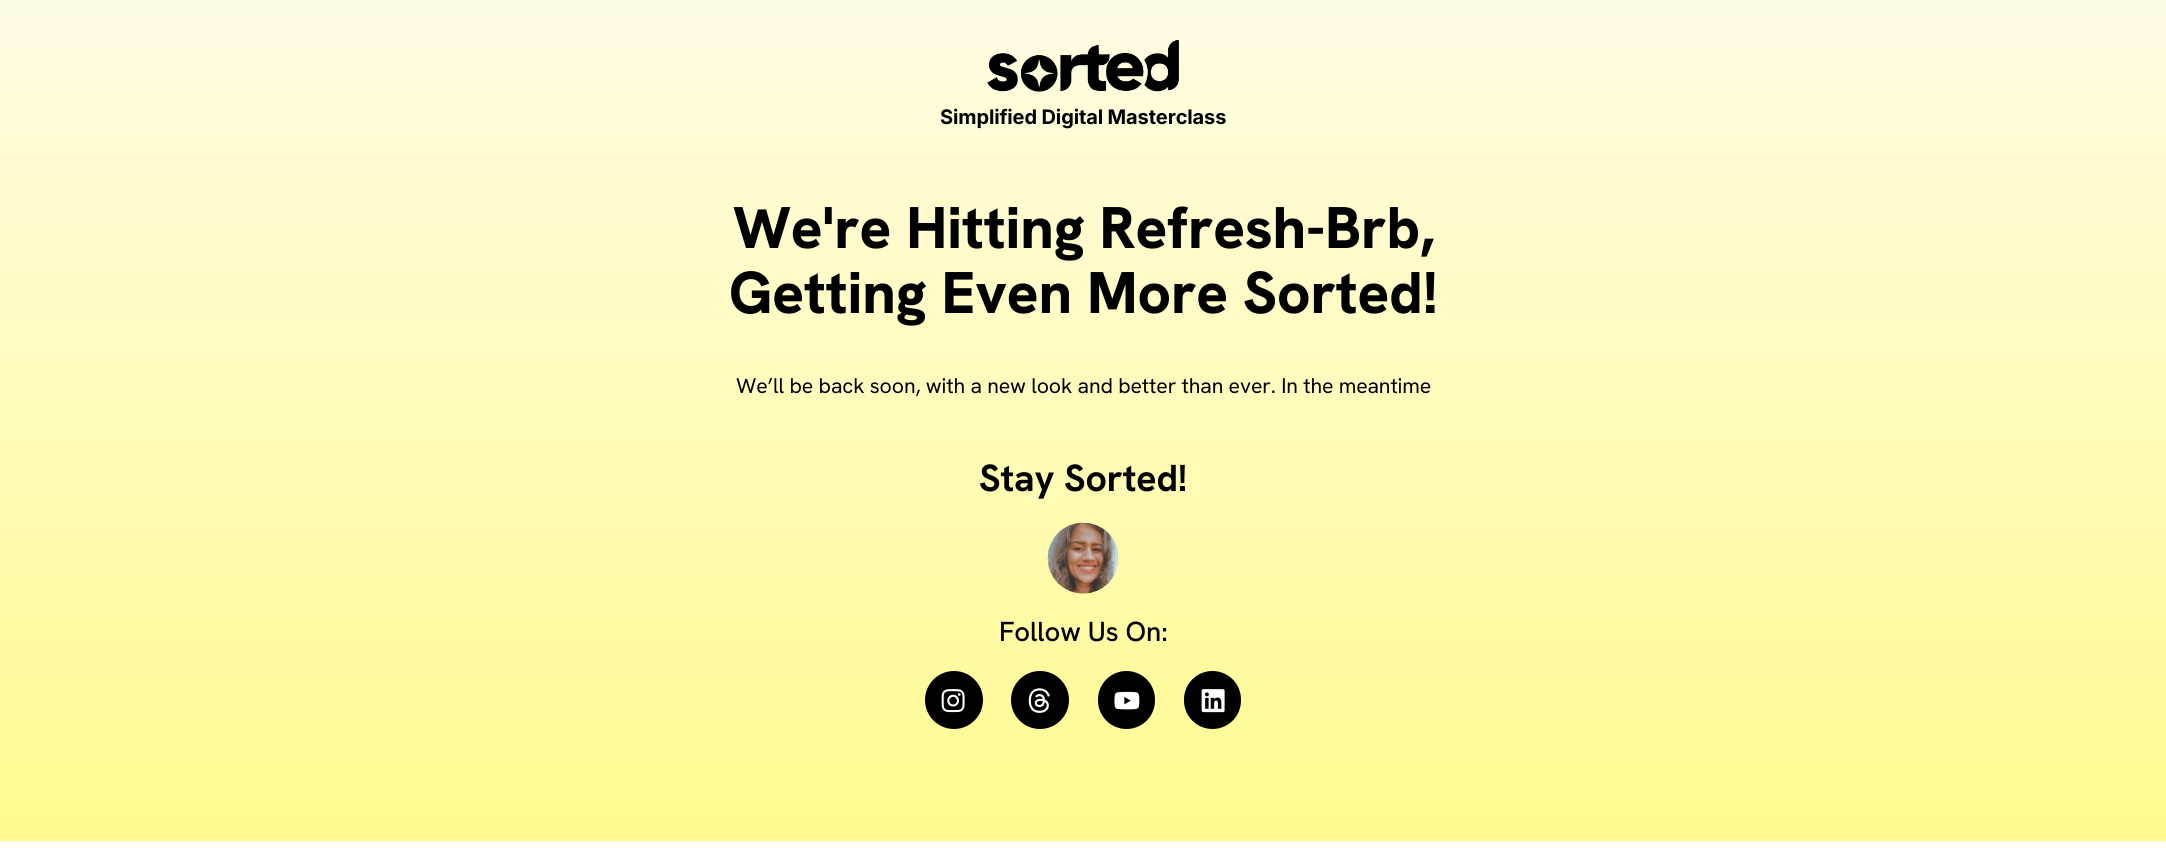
#include <cairo/cairo.h>
#include <math.h>
#include <stddef.h>


static void draw_spaced(cairo_t *cr, double x, double y, const char *s, double letter, double word) {
  cairo_move_to(cr, x, y);
  while (*s) {
    char ch[5] = {0};
    int n = 0;
    do ch[n++] = *s++; while ((*s & 0xC0) == 0x80);
    cairo_show_text(cr, ch);
    cairo_rel_move_to(cr, letter + word * (*ch == ' '), 0);
  }
}

static void rounded_rect(cairo_t *cr, double x, double y, double w, double h, double r) {
  cairo_new_sub_path(cr);
  cairo_arc(cr, x + w - r, y + h - r, r, 0, M_PI / 2);
  cairo_arc(cr, x + r, y + h - r, r, M_PI / 2, M_PI);
  cairo_arc(cr, x + r, y + r, r, M_PI, 1.5 * M_PI);
  cairo_arc(cr, x + w - r, y + r, r, 1.5 * M_PI, 2 * M_PI);
  cairo_close_path(cr);
}

static void draw_image(cairo_t *cr, const char *path, double x, double y, double w, double h) {
  cairo_surface_t *image = cairo_image_surface_create_from_png(path);
  cairo_save(cr);
  cairo_set_source_surface(cr, image, x, y);
  cairo_rectangle(cr, x, y, w, h);
  cairo_fill(cr);
  cairo_restore(cr);
  cairo_surface_destroy(image);
}

static void draw(cairo_t *cr) {
  cairo_pattern_t *gradient;
  cairo_set_source_rgb(cr, 1, 1, 1);
  cairo_paint(cr);
  gradient = cairo_pattern_create_linear(1083, 0, 1083, 841);
  cairo_pattern_add_color_stop_rgba(gradient, 0, 1, 252 / 255.0, 229 / 255.0, 1);
  cairo_pattern_add_color_stop_rgba(gradient, 1, 1, 250 / 255.0, 142 / 255.0, 1);
  cairo_set_source(cr, gradient);
  cairo_pattern_destroy(gradient);
  cairo_rectangle(cr, 0, 0, 2166, 841);
  cairo_fill(cr);
  draw_image(cr, "images/1.png", 987, 39, 192, 53);
  draw_image(cr, "images/2.png", 1047, 522, 72, 72);
  cairo_set_source_rgb(cr, 0, 0, 0);
  cairo_arc(cr, 954, 700, 29, 0, 2 * M_PI);
  cairo_fill(cr);
  draw_image(cr, "images/3.png", 941, 689, 24, 24);
  cairo_arc(cr, 1040, 700, 29, 0, 2 * M_PI);
  cairo_fill(cr);
  draw_image(cr, "images/4.png", 1028, 688, 22, 25);
  rounded_rect(cr, 1098, 671, 57, 58, 28.5);
  cairo_fill(cr);
  draw_image(cr, "images/5.png", 1114, 691, 26, 19);
  rounded_rect(cr, 1184, 671, 57, 58, 28.5);
  cairo_fill(cr);
  draw_image(cr, "images/6.png", 1201, 689, 24, 24);
  cairo_select_font_face(cr, "Inter", CAIRO_FONT_SLANT_NORMAL, CAIRO_FONT_WEIGHT_BOLD);
  cairo_set_font_size(cr, 20);
  draw_spaced(cr, 940, 124, "Simplified Digital Masterclass", -0.12, 0);
  cairo_select_font_face(cr, "Hanken Grotesk ExtraBold", CAIRO_FONT_SLANT_NORMAL, CAIRO_FONT_WEIGHT_NORMAL);
  cairo_set_font_size(cr, 58.75);
  draw_spaced(cr, 733, 248, "We're Hitting Refresh-Brb,", -0.12, 0);
  draw_spaced(cr, 729, 313, "Getting Even More Sorted!", -0.12, 0);
  cairo_select_font_face(cr, "Hanken Grotesk", CAIRO_FONT_SLANT_NORMAL, CAIRO_FONT_WEIGHT_NORMAL);
  cairo_set_font_size(cr, 21.25);
  draw_spaced(cr, 736, 393, "We’ll be back soon, with a new look and better than ever. In the meantime", -0.12, 0);
  cairo_select_font_face(cr, "Hanken Grotesk", CAIRO_FONT_SLANT_NORMAL, CAIRO_FONT_WEIGHT_BOLD);
  cairo_set_font_size(cr, 37.5);
  draw_spaced(cr, 979, 491, "Stay Sorted!", -0.12, 0);
  cairo_select_font_face(cr, "Hanken Grotesk Medium", CAIRO_FONT_SLANT_NORMAL, CAIRO_FONT_WEIGHT_NORMAL);
  cairo_set_font_size(cr, 27.5);
  draw_spaced(cr, 999, 641, "Follow Us On:", -0.12, 0);
}

int main(void) {
  cairo_surface_t *surface = cairo_image_surface_create(CAIRO_FORMAT_RGB24, 2166, 859);
  cairo_t *cr = cairo_create(surface);
  cairo_font_options_t *options = cairo_font_options_create();
  cairo_font_options_set_hint_metrics(options, CAIRO_HINT_METRICS_OFF);
  cairo_font_options_set_hint_style(options, CAIRO_HINT_STYLE_NONE);
  cairo_set_font_options(cr, options);
  cairo_set_miter_limit(cr, 4);
  draw(cr);
  cairo_surface_write_to_png(surface, "out.png");
  cairo_font_options_destroy(options);
  cairo_destroy(cr);
  cairo_surface_destroy(surface);
  return 0;
}
